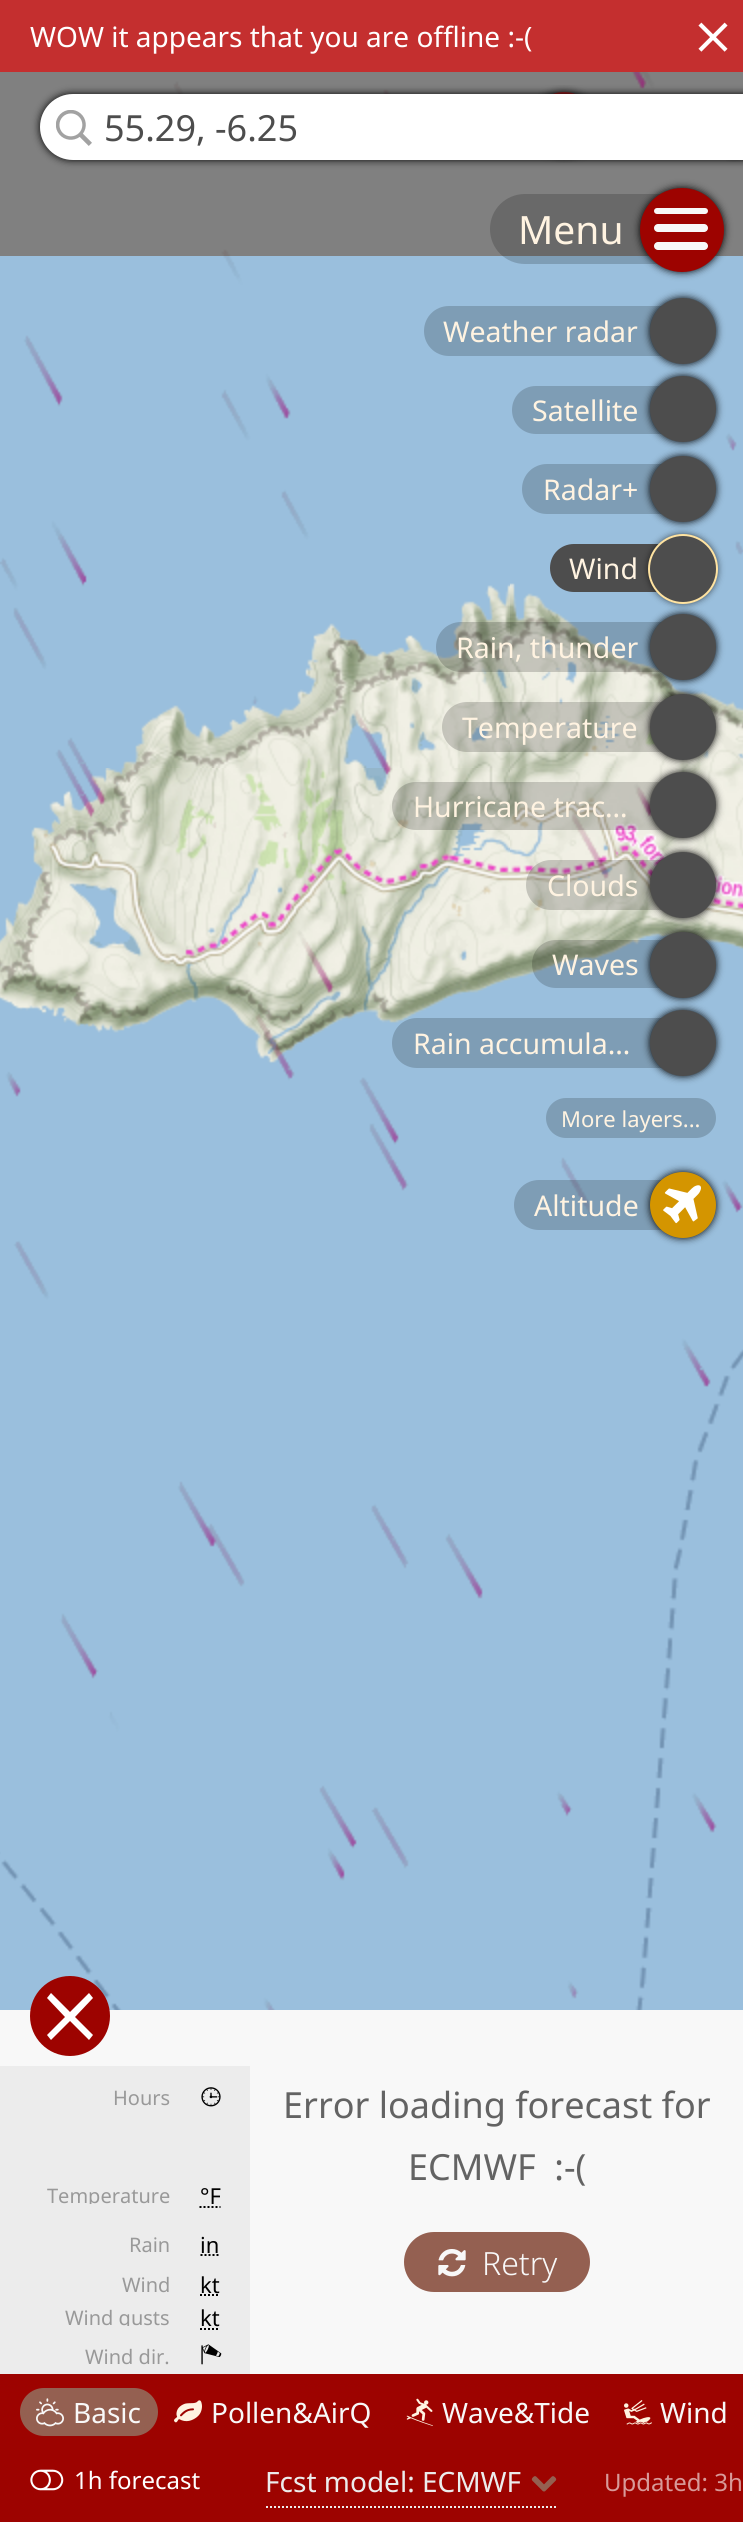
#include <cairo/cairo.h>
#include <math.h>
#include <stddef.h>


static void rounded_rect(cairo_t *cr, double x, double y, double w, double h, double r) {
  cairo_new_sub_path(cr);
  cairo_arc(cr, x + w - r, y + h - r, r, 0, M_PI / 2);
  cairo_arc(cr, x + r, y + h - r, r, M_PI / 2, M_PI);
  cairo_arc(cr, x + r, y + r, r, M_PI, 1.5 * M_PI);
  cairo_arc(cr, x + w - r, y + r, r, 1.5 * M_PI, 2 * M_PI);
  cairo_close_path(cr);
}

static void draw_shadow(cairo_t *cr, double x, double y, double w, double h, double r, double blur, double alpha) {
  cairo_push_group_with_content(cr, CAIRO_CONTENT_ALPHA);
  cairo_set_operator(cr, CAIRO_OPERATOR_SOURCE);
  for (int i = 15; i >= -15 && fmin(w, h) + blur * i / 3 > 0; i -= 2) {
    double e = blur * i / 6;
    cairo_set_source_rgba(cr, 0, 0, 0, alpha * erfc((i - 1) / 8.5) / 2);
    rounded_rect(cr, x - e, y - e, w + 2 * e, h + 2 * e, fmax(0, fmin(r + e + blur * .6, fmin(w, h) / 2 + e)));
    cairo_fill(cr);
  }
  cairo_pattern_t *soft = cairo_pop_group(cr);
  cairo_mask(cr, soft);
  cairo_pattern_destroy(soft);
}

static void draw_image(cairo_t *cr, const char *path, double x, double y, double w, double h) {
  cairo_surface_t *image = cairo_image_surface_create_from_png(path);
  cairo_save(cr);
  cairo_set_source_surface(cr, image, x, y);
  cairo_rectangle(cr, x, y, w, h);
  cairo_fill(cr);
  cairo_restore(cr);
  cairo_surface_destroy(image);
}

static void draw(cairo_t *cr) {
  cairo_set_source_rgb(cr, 128 / 255.0, 128 / 255.0, 128 / 255.0);
  cairo_paint(cr);
  cairo_set_source_rgb(cr, 196 / 255.0, 47 / 255.0, 47 / 255.0);
  cairo_rectangle(cr, 0, 0, 743, 72);
  cairo_fill(cr);
  draw_image(cr, "images/1.png", 698, 22, 30, 30);
  draw_image(cr, "images/3.png", 0, 256, 510, 512);
  draw_image(cr, "images/4.png", 510, 256, 233, 512);
  draw_image(cr, "images/5.png", 0, 768, 510, 512);
  draw_image(cr, "images/6.png", 510, 768, 233, 512);
  cairo_set_source_rgb(cr, 154 / 255.0, 191 / 255.0, 221 / 255.0);
  cairo_rectangle(cr, 0, 1280, 510, 512);
  cairo_fill(cr);
  draw_image(cr, "images/7.png", 510, 1280, 233, 512);
  draw_image(cr, "images/8.png", 0, 1792, 510, 218);
  draw_image(cr, "images/9.png", 510, 1792, 233, 218);
  draw_image(cr, "images/2.png", 0, 72, 743, 1938);
  draw_image(cr, "images/11.png", 538, 85, 52, 78);
  draw_image(cr, "images/12.png", 726, 160, 17, 2);
  cairo_set_source_rgb(cr, 0, 0, 0);
  draw_shadow(cr, 40, 94, 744, 66, 33, 4, 1);
  cairo_set_source_rgb(cr, 1, 1, 1);
  rounded_rect(cr, 40, 94, 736, 66, 33);
  cairo_fill(cr);
  draw_image(cr, "images/10.png", 56, 110, 36, 36);
  cairo_set_source_rgba(cr, 0, 0, 0, 0.18);
  cairo_new_path(cr);
  cairo_move_to(cr, 525, 194);
  cairo_line_to(cr, 680, 194);
  cairo_line_to(cr, 680, 264);
  cairo_line_to(cr, 525, 264);
  cairo_curve_to(cr, 505.5, 264, 490, 248.5, 490, 229);
  cairo_curve_to(cr, 490, 209.5, 505.5, 194, 525, 194);
  cairo_close_path(cr);
  cairo_fill(cr);
  cairo_set_source_rgb(cr, 0, 0, 0);
  draw_shadow(cr, 640, 188, 84, 84, 42, 4, 1);
  cairo_set_source_rgb(cr, 157 / 255.0, 3 / 255.0, 0);
  cairo_arc(cr, 682, 230, 42, 0, 2 * M_PI);
  cairo_fill(cr);
  cairo_set_source_rgb(cr, 248 / 255.0, 248 / 255.0, 248 / 255.0);
  rounded_rect(cr, 654, 208, 54, 6, 3);
  cairo_fill(cr);
  rounded_rect(cr, 654, 224, 54, 8, 4);
  cairo_fill(cr);
  rounded_rect(cr, 654, 242, 54, 8, 4);
  cairo_fill(cr);
  cairo_set_source_rgb(cr, 126 / 255.0, 157 / 255.0, 181 / 255.0);
  cairo_new_path(cr);
  cairo_move_to(cr, 449, 306);
  cairo_line_to(cr, 678, 306);
  cairo_line_to(cr, 678, 356);
  cairo_line_to(cr, 449, 356);
  cairo_curve_to(cr, 435, 356, 424, 345, 424, 331);
  cairo_curve_to(cr, 424, 317, 435, 306, 449, 306);
  cairo_close_path(cr);
  cairo_fill(cr);
  cairo_set_source_rgb(cr, 0, 0, 0);
  draw_shadow(cr, 650, 298, 66, 66, 33, 4, 1);
  cairo_set_source_rgb(cr, 77 / 255.0, 77 / 255.0, 77 / 255.0);
  cairo_arc(cr, 683, 331, 33, 0, 2 * M_PI);
  cairo_fill(cr);
  cairo_set_source_rgb(cr, 126 / 255.0, 157 / 255.0, 181 / 255.0);
  cairo_new_path(cr);
  cairo_move_to(cr, 536, 386);
  cairo_line_to(cr, 678, 386);
  cairo_line_to(cr, 678, 434);
  cairo_line_to(cr, 536, 434);
  cairo_curve_to(cr, 522.5, 434, 512, 423.5, 512, 410);
  cairo_curve_to(cr, 512, 396.5, 522.5, 386, 536, 386);
  cairo_close_path(cr);
  cairo_fill(cr);
  cairo_set_source_rgb(cr, 0, 0, 0);
  draw_shadow(cr, 650, 376, 66, 66, 33, 4, 1);
  cairo_set_source_rgb(cr, 77 / 255.0, 77 / 255.0, 77 / 255.0);
  cairo_arc(cr, 683, 409, 33, 0, 2 * M_PI);
  cairo_fill(cr);
  cairo_set_source_rgb(cr, 126 / 255.0, 157 / 255.0, 181 / 255.0);
  cairo_new_path(cr);
  cairo_move_to(cr, 547, 464);
  cairo_line_to(cr, 678, 464);
  cairo_line_to(cr, 678, 514);
  cairo_line_to(cr, 547, 514);
  cairo_curve_to(cr, 533, 514, 522, 503, 522, 489);
  cairo_curve_to(cr, 522, 475, 533, 464, 547, 464);
  cairo_close_path(cr);
  cairo_fill(cr);
  cairo_set_source_rgb(cr, 0, 0, 0);
  draw_shadow(cr, 650, 456, 66, 66, 33, 4, 1);
  cairo_set_source_rgb(cr, 77 / 255.0, 77 / 255.0, 77 / 255.0);
  cairo_arc(cr, 683, 489, 33, 0, 2 * M_PI);
  cairo_fill(cr);
  cairo_new_path(cr);
  cairo_move_to(cr, 574, 544);
  cairo_line_to(cr, 678, 544);
  cairo_line_to(cr, 678, 592);
  cairo_line_to(cr, 574, 592);
  cairo_curve_to(cr, 560.5, 592, 550, 581.5, 550, 568);
  cairo_curve_to(cr, 550, 554.5, 560.5, 544, 574, 544);
  cairo_close_path(cr);
  cairo_fill(cr);
  cairo_set_source_rgb(cr, 0, 0, 0);
  draw_shadow(cr, 650, 536, 66, 66, 33, 4, 1);
  cairo_set_source_rgb(cr, 77 / 255.0, 77 / 255.0, 77 / 255.0);
  cairo_arc(cr, 683, 569, 34, 0, 2 * M_PI);
  cairo_fill_preserve(cr);
  cairo_set_source_rgb(cr, 1, 227 / 255.0, 161 / 255.0);
  cairo_stroke(cr);
  cairo_set_source_rgba(cr, 0, 0, 0, 0.18);
  cairo_new_path(cr);
  cairo_move_to(cr, 461, 622);
  cairo_line_to(cr, 678, 622);
  cairo_line_to(cr, 678, 672);
  cairo_line_to(cr, 461, 672);
  cairo_curve_to(cr, 447, 672, 436, 661, 436, 647);
  cairo_curve_to(cr, 436, 633, 447, 622, 461, 622);
  cairo_close_path(cr);
  cairo_fill(cr);
  cairo_set_source_rgb(cr, 0, 0, 0);
  draw_shadow(cr, 650, 614, 66, 66, 33, 4, 1);
  cairo_set_source_rgb(cr, 77 / 255.0, 77 / 255.0, 77 / 255.0);
  cairo_arc(cr, 683, 647, 33, 0, 2 * M_PI);
  cairo_fill(cr);
  cairo_set_source_rgba(cr, 0, 0, 0, 0.18);
  cairo_new_path(cr);
  cairo_move_to(cr, 467, 702);
  cairo_line_to(cr, 678, 702);
  cairo_line_to(cr, 678, 752);
  cairo_line_to(cr, 467, 752);
  cairo_curve_to(cr, 453, 752, 442, 741, 442, 727);
  cairo_curve_to(cr, 442, 713, 453, 702, 467, 702);
  cairo_close_path(cr);
  cairo_fill(cr);
  cairo_set_source_rgb(cr, 0, 0, 0);
  draw_shadow(cr, 650, 694, 66, 66, 33, 4, 1);
  cairo_set_source_rgb(cr, 77 / 255.0, 77 / 255.0, 77 / 255.0);
  cairo_arc(cr, 683, 727, 33, 0, 2 * M_PI);
  cairo_fill(cr);
  cairo_set_source_rgba(cr, 0, 0, 0, 0.18);
  cairo_new_path(cr);
  cairo_move_to(cr, 416, 782);
  cairo_line_to(cr, 678, 782);
  cairo_line_to(cr, 678, 830);
  cairo_line_to(cr, 416, 830);
  cairo_curve_to(cr, 402.5, 830, 392, 819.5, 392, 806);
  cairo_curve_to(cr, 392, 792.5, 402.5, 782, 416, 782);
  cairo_close_path(cr);
  cairo_fill(cr);
  cairo_set_source_rgb(cr, 0, 0, 0);
  draw_shadow(cr, 650, 772, 66, 66, 33, 4, 1);
  cairo_set_source_rgb(cr, 77 / 255.0, 77 / 255.0, 77 / 255.0);
  cairo_arc(cr, 683, 805, 33, 0, 2 * M_PI);
  cairo_fill(cr);
  cairo_set_source_rgba(cr, 0, 0, 0, 0.18);
  cairo_new_path(cr);
  cairo_move_to(cr, 551, 860);
  cairo_line_to(cr, 678, 860);
  cairo_line_to(cr, 678, 910);
  cairo_line_to(cr, 551, 910);
  cairo_curve_to(cr, 537, 910, 526, 899, 526, 885);
  cairo_curve_to(cr, 526, 871, 537, 860, 551, 860);
  cairo_close_path(cr);
  cairo_fill(cr);
  cairo_set_source_rgb(cr, 0, 0, 0);
  draw_shadow(cr, 650, 852, 66, 66, 33, 4, 1);
  cairo_set_source_rgb(cr, 77 / 255.0, 77 / 255.0, 77 / 255.0);
  cairo_arc(cr, 683, 885, 33, 0, 2 * M_PI);
  cairo_fill(cr);
  cairo_set_source_rgba(cr, 0, 0, 0, 0.18);
  cairo_new_path(cr);
  cairo_move_to(cr, 556, 940);
  cairo_line_to(cr, 678, 940);
  cairo_line_to(cr, 678, 988);
  cairo_line_to(cr, 556, 988);
  cairo_curve_to(cr, 542.5, 988, 532, 977.5, 532, 964);
  cairo_curve_to(cr, 532, 950.5, 542.5, 940, 556, 940);
  cairo_close_path(cr);
  cairo_fill(cr);
  cairo_set_source_rgb(cr, 0, 0, 0);
  draw_shadow(cr, 650, 932, 66, 66, 33, 4, 1);
  cairo_set_source_rgb(cr, 77 / 255.0, 77 / 255.0, 77 / 255.0);
  cairo_arc(cr, 683, 965, 33, 0, 2 * M_PI);
  cairo_fill(cr);
  cairo_set_source_rgb(cr, 126 / 255.0, 157 / 255.0, 181 / 255.0);
  cairo_new_path(cr);
  cairo_move_to(cr, 417, 1018);
  cairo_line_to(cr, 678, 1018);
  cairo_line_to(cr, 678, 1068);
  cairo_line_to(cr, 417, 1068);
  cairo_curve_to(cr, 403, 1068, 392, 1057, 392, 1043);
  cairo_curve_to(cr, 392, 1029, 403, 1018, 417, 1018);
  cairo_close_path(cr);
  cairo_fill(cr);
  cairo_set_source_rgb(cr, 0, 0, 0);
  draw_shadow(cr, 650, 1010, 66, 66, 33, 4, 1);
  cairo_set_source_rgb(cr, 77 / 255.0, 77 / 255.0, 77 / 255.0);
  cairo_arc(cr, 683, 1043, 33, 0, 2 * M_PI);
  cairo_fill(cr);
  cairo_set_source_rgb(cr, 126 / 255.0, 157 / 255.0, 181 / 255.0);
  rounded_rect(cr, 546, 1098, 170, 40, 20);
  cairo_fill(cr);
  cairo_set_source_rgba(cr, 0, 0, 0, 0.18);
  cairo_new_path(cr);
  cairo_move_to(cr, 539, 1180);
  cairo_line_to(cr, 678, 1180);
  cairo_line_to(cr, 678, 1230);
  cairo_line_to(cr, 539, 1230);
  cairo_curve_to(cr, 525, 1230, 514, 1219, 514, 1205);
  cairo_curve_to(cr, 514, 1191, 525, 1180, 539, 1180);
  cairo_close_path(cr);
  cairo_fill(cr);
  cairo_set_source_rgb(cr, 0, 0, 0);
  draw_shadow(cr, 650, 1172, 66, 66, 33, 4, 1);
  cairo_set_source_rgb(cr, 212 / 255.0, 149 / 255.0, 0);
  cairo_arc(cr, 683, 1205, 33, 0, 2 * M_PI);
  cairo_fill(cr);
  draw_image(cr, "images/13.png", 663, 1185, 38, 39);
  cairo_set_source_rgb(cr, 248 / 255.0, 248 / 255.0, 248 / 255.0);
  cairo_rectangle(cr, 0, 2010, 250, 56);
  cairo_fill(cr);
  cairo_set_source_rgb(cr, 157 / 255.0, 3 / 255.0, 0);
  cairo_arc(cr, 70, 2016, 40, 0, 2 * M_PI);
  cairo_fill(cr);
  cairo_set_source_rgb(cr, 1, 1, 1);
  cairo_new_path(cr);
  cairo_move_to(cr, 93, 1998);
  cairo_line_to(cr, 89, 1993);
  cairo_line_to(cr, 70, 2012);
  cairo_line_to(cr, 51, 1993);
  cairo_line_to(cr, 47, 1998);
  cairo_line_to(cr, 65, 2017);
  cairo_line_to(cr, 47, 2035);
  cairo_line_to(cr, 51, 2040);
  cairo_line_to(cr, 70, 2021);
  cairo_line_to(cr, 89, 2040);
  cairo_line_to(cr, 93, 2035);
  cairo_line_to(cr, 75, 2017);
  cairo_close_path(cr);
  cairo_fill(cr);
  cairo_set_source_rgb(cr, 248 / 255.0, 248 / 255.0, 248 / 255.0);
  cairo_rectangle(cr, 250, 2010, 493, 364);
  cairo_fill(cr);
  cairo_set_source_rgb(cr, 236 / 255.0, 236 / 255.0, 236 / 255.0);
  cairo_rectangle(cr, 0, 2066, 250, 308);
  cairo_fill(cr);
  draw_image(cr, "images/14.png", 201, 2087, 20, 20);
  cairo_new_path(cr);
  cairo_move_to(cr, 199.5, 2207);
  cairo_line_to(cr, 220.5, 2207);
  cairo_set_source_rgb(cr, 0, 0, 0);
  cairo_set_dash(cr, (double[]){2, 2}, 2, 0);
  cairo_stroke(cr);
  cairo_new_path(cr);
  cairo_move_to(cr, 200.5, 2255);
  cairo_line_to(cr, 219.5, 2255);
  cairo_stroke(cr);
  cairo_new_path(cr);
  cairo_move_to(cr, 200, 2295);
  cairo_line_to(cr, 220, 2295);
  cairo_stroke(cr);
  cairo_new_path(cr);
  cairo_move_to(cr, 200, 2329);
  cairo_line_to(cr, 220, 2329);
  cairo_stroke(cr);
  draw_image(cr, "images/15.png", 201, 2344, 21, 21);
  cairo_set_source_rgb(cr, 148 / 255.0, 96 / 255.0, 81 / 255.0);
  rounded_rect(cr, 404, 2232, 186, 60, 30);
  cairo_fill(cr);
  draw_image(cr, "images/16.png", 438, 2249, 28, 28);
  cairo_set_source_rgb(cr, 157 / 255.0, 3 / 255.0, 0);
  cairo_rectangle(cr, 0, 2374, 743, 148);
  cairo_fill(cr);
  cairo_set_source_rgb(cr, 148 / 255.0, 96 / 255.0, 81 / 255.0);
  rounded_rect(cr, 20, 2388, 138, 48, 24);
  cairo_fill(cr);
  draw_image(cr, "images/17.png", 36, 2398, 28, 29);
  draw_image(cr, "images/18.png", 174, 2400, 28, 23);
  draw_image(cr, "images/19.png", 406, 2398, 27, 28);
  draw_image(cr, "images/20.png", 624, 2400, 28, 25);
  draw_image(cr, "images/21.png", 30, 2469, 34, 22);
  cairo_new_path(cr);
  cairo_move_to(cr, 266, 2507);
  cairo_line_to(cr, 558, 2507);
  cairo_set_source_rgb(cr, 236 / 255.0, 236 / 255.0, 236 / 255.0);
  cairo_stroke(cr);
  draw_image(cr, "images/22.png", 531, 2476, 26, 16);
  cairo_select_font_face(cr, "Noto Sans", CAIRO_FONT_SLANT_NORMAL, CAIRO_FONT_WEIGHT_NORMAL);
  cairo_set_font_size(cr, 28);
  cairo_set_source_rgb(cr, 1, 1, 1);
  cairo_move_to(cr, 30, 47);
  cairo_show_text(cr, "WOW it appears that you are offline :-(");
  cairo_set_font_size(cr, 36);
  cairo_set_source_rgb(cr, 77 / 255.0, 77 / 255.0, 77 / 255.0);
  cairo_move_to(cr, 104, 141);
  cairo_show_text(cr, "55.29, -6.25");
  cairo_set_font_size(cr, 39);
  cairo_set_source_rgb(cr, 1, 243 / 255.0, 225 / 255.0);
  cairo_move_to(cr, 518, 244);
  cairo_show_text(cr, "Menu");
  cairo_set_font_size(cr, 28.5);
  cairo_move_to(cr, 443, 342);
  cairo_show_text(cr, "Weather radar");
  cairo_move_to(cr, 532, 421);
  cairo_show_text(cr, "Satellite");
  cairo_move_to(cr, 543, 500);
  cairo_show_text(cr, "Radar+");
  cairo_move_to(cr, 569, 579);
  cairo_show_text(cr, "Wind");
  cairo_move_to(cr, 456, 658);
  cairo_show_text(cr, "Rain, thunder");
  cairo_move_to(cr, 462, 738);
  cairo_show_text(cr, "Temperature");
  cairo_move_to(cr, 413, 817);
  cairo_show_text(cr, "Hurricane trac…");
  cairo_move_to(cr, 547, 896);
  cairo_show_text(cr, "Clouds");
  cairo_move_to(cr, 552, 975);
  cairo_show_text(cr, "Waves");
  cairo_move_to(cr, 413, 1054);
  cairo_show_text(cr, "Rain accumula…");
  cairo_set_font_size(cr, 22);
  cairo_move_to(cr, 561, 1127);
  cairo_show_text(cr, "More layers...");
  cairo_set_font_size(cr, 28.5);
  cairo_move_to(cr, 534, 1216);
  cairo_show_text(cr, "Altitude");
  cairo_set_font_size(cr, 20);
  cairo_set_source_rgb(cr, 153 / 255.0, 153 / 255.0, 153 / 255.0);
  cairo_move_to(cr, 113, 2105);
  cairo_show_text(cr, "Hours");
  cairo_save(cr);
  cairo_rectangle(cr, 0, 2184, 170, 20);
  cairo_clip(cr);
  cairo_move_to(cr, 47, 2203);
  cairo_show_text(cr, "Temperature");
  cairo_restore(cr);
  cairo_set_font_size(cr, 22);
  cairo_set_source_rgb(cr, 0, 0, 0);
  cairo_move_to(cr, 200, 2204);
  cairo_show_text(cr, "°F");
  cairo_set_font_size(cr, 20);
  cairo_set_source_rgb(cr, 153 / 255.0, 153 / 255.0, 153 / 255.0);
  cairo_move_to(cr, 129, 2252);
  cairo_show_text(cr, "Rain");
  cairo_set_font_size(cr, 22);
  cairo_set_source_rgb(cr, 0, 0, 0);
  cairo_move_to(cr, 200, 2253);
  cairo_show_text(cr, "in");
  cairo_set_font_size(cr, 20);
  cairo_set_source_rgb(cr, 153 / 255.0, 153 / 255.0, 153 / 255.0);
  cairo_move_to(cr, 122, 2292);
  cairo_show_text(cr, "Wind");
  cairo_set_font_size(cr, 22);
  cairo_set_source_rgb(cr, 0, 0, 0);
  cairo_move_to(cr, 200, 2293);
  cairo_show_text(cr, "kt");
  cairo_save(cr);
  cairo_rectangle(cr, 0, 2306, 170, 20);
  cairo_clip(cr);
  cairo_set_font_size(cr, 20);
  cairo_set_source_rgb(cr, 153 / 255.0, 153 / 255.0, 153 / 255.0);
  cairo_move_to(cr, 65, 2325);
  cairo_show_text(cr, "Wind gusts");
  cairo_restore(cr);
  cairo_move_to(cr, 200, 2326);
  cairo_show_text(cr, "kt");
  cairo_set_font_size(cr, 20);
  cairo_set_source_rgb(cr, 153 / 255.0, 153 / 255.0, 153 / 255.0);
  cairo_move_to(cr, 85, 2364);
  cairo_show_text(cr, "Wind dir.");
  cairo_set_font_size(cr, 36);
  cairo_set_source_rgb(cr, 99 / 255.0, 99 / 255.0, 99 / 255.0);
  cairo_move_to(cr, 283, 2118);
  cairo_show_text(cr, "Error loading forecast for");
  cairo_move_to(cr, 408, 2180);
  cairo_show_text(cr, "ECMWF  :-(");
  cairo_select_font_face(cr, "Noto Sans Light", CAIRO_FONT_SLANT_NORMAL, CAIRO_FONT_WEIGHT_NORMAL);
  cairo_set_font_size(cr, 32);
  cairo_set_source_rgb(cr, 248 / 255.0, 248 / 255.0, 248 / 255.0);
  cairo_move_to(cr, 482, 2275);
  cairo_show_text(cr, "Retry");
  cairo_select_font_face(cr, "Noto Sans", CAIRO_FONT_SLANT_NORMAL, CAIRO_FONT_WEIGHT_NORMAL);
  cairo_set_font_size(cr, 28);
  cairo_move_to(cr, 73, 2423);
  cairo_show_text(cr, "Basic");
  cairo_move_to(cr, 211, 2423);
  cairo_show_text(cr, "Pollen&AirQ");
  cairo_move_to(cr, 442, 2423);
  cairo_show_text(cr, "Wave&Tide");
  cairo_move_to(cr, 660, 2423);
  cairo_show_text(cr, "Wind");
  cairo_set_font_size(cr, 24);
  cairo_set_source_rgb(cr, 1, 1, 1);
  cairo_move_to(cr, 74, 2489);
  cairo_show_text(cr, "1h forecast");
  cairo_set_font_size(cr, 28);
  cairo_set_source_rgb(cr, 236 / 255.0, 236 / 255.0, 236 / 255.0);
  cairo_move_to(cr, 265, 2492);
  cairo_show_text(cr, "Fcst model: ECMWF");
  cairo_set_font_size(cr, 24);
  cairo_set_source_rgb(cr, 216 / 255.0, 154 / 255.0, 153 / 255.0);
  cairo_move_to(cr, 604, 2491);
  cairo_show_text(cr, "Updated: 3h");
}

int main(void) {
  cairo_surface_t *surface = cairo_image_surface_create(CAIRO_FORMAT_RGB24, 743, 2522);
  cairo_t *cr = cairo_create(surface);
  cairo_font_options_t *options = cairo_font_options_create();
  cairo_font_options_set_hint_metrics(options, CAIRO_HINT_METRICS_OFF);
  cairo_font_options_set_hint_style(options, CAIRO_HINT_STYLE_NONE);
  cairo_set_font_options(cr, options);
  cairo_set_miter_limit(cr, 4);
  draw(cr);
  cairo_surface_write_to_png(surface, "out.png");
  cairo_font_options_destroy(options);
  cairo_destroy(cr);
  cairo_surface_destroy(surface);
  return 0;
}
